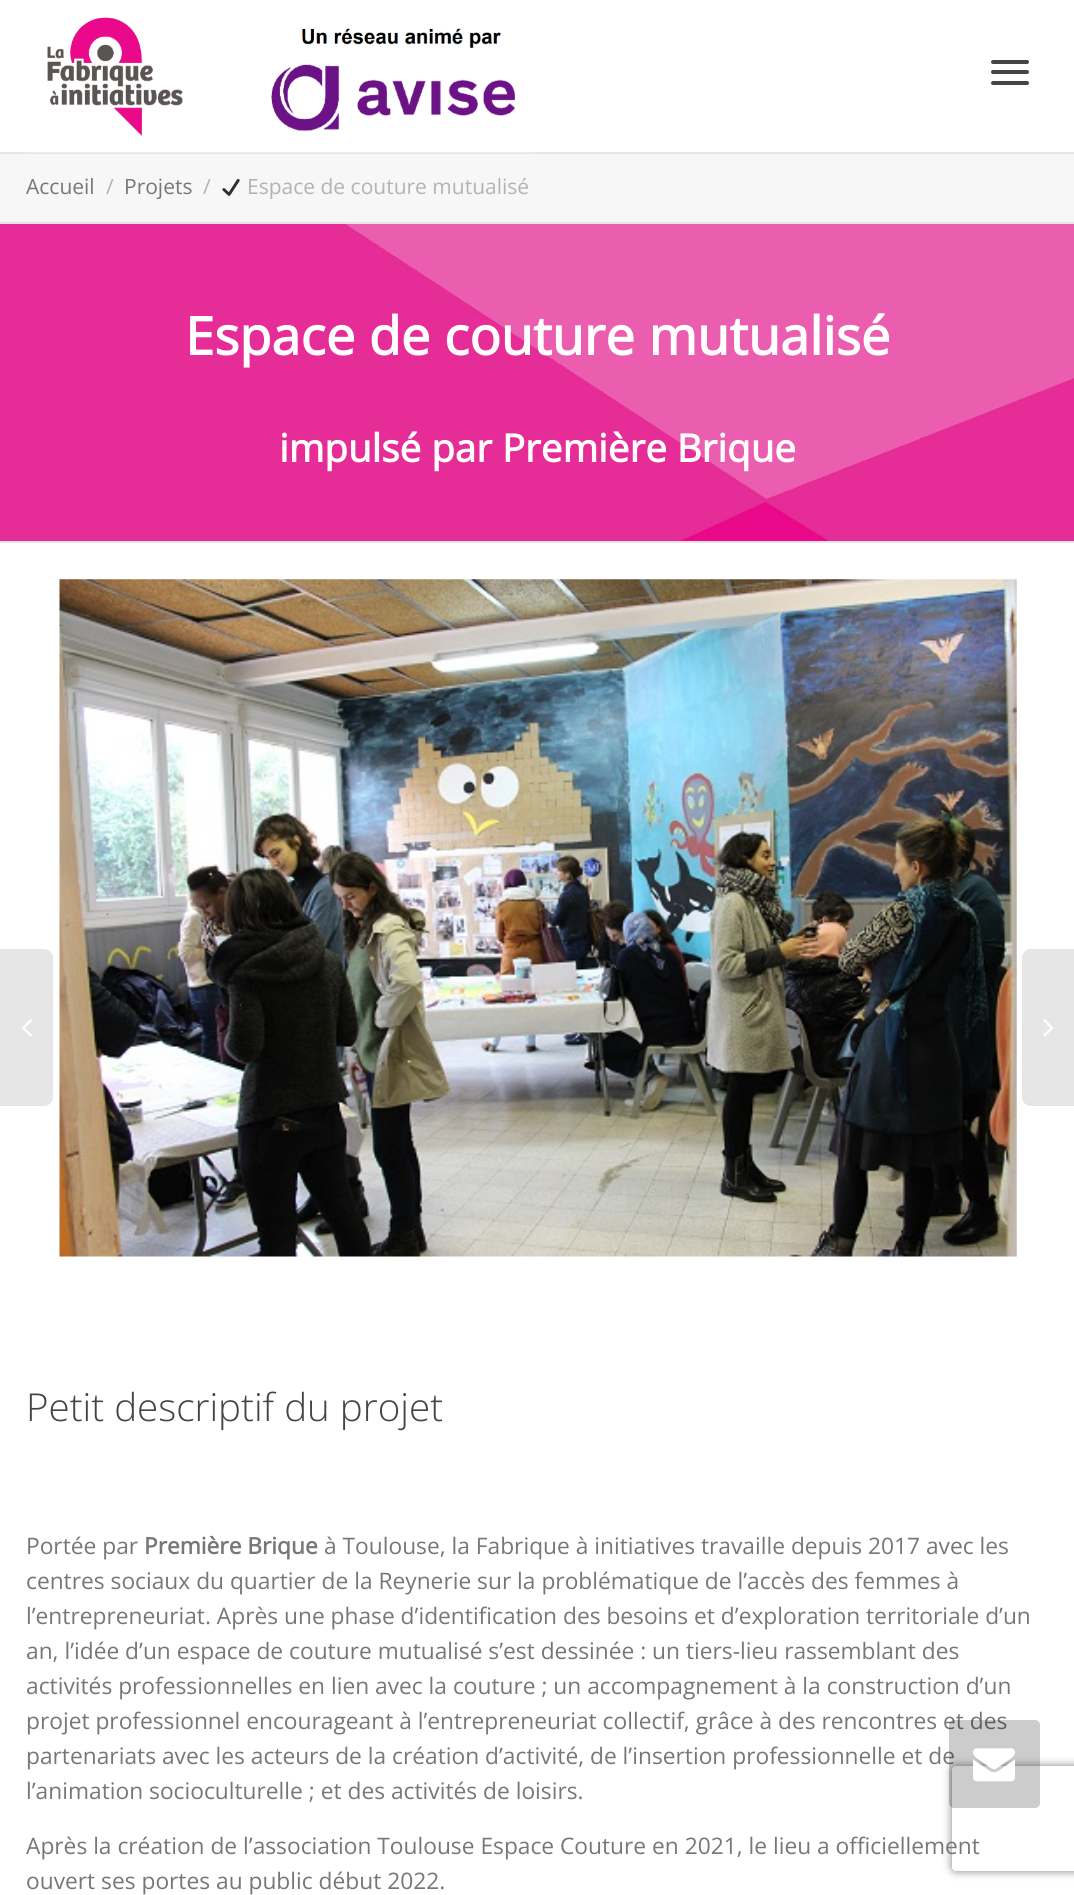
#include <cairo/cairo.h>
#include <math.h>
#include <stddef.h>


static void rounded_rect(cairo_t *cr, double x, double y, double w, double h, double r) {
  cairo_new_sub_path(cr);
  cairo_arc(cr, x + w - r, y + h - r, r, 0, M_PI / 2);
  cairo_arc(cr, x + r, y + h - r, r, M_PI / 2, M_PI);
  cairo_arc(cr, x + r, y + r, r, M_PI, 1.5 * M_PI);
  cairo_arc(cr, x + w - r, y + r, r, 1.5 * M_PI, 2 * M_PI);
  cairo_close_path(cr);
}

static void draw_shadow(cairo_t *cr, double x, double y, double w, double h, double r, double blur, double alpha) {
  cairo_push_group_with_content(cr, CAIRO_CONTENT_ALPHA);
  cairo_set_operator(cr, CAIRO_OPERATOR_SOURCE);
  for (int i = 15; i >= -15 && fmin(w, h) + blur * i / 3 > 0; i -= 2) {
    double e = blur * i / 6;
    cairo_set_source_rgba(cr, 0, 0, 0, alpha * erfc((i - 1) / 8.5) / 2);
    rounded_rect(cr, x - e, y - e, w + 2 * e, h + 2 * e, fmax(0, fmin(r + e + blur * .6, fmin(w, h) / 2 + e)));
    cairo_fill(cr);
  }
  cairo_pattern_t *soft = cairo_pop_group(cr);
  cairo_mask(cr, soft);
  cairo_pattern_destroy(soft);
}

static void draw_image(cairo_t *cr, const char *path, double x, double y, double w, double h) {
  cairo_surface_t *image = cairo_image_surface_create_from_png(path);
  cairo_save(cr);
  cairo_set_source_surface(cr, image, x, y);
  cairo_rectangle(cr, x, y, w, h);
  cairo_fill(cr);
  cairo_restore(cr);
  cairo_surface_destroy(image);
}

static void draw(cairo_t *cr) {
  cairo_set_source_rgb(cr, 1, 1, 1);
  cairo_paint(cr);
  cairo_set_source_rgb(cr, 229 / 255.0, 229 / 255.0, 229 / 255.0);
  cairo_rectangle(cr, 0, 152, 1074, 2);
  cairo_fill(cr);
  draw_image(cr, "images/1.png", 26, 17, 508, 136);
  cairo_set_source_rgb(cr, 68 / 255.0, 68 / 255.0, 68 / 255.0);
  rounded_rect(cr, 991, 60, 38, 4, 2);
  cairo_fill(cr);
  rounded_rect(cr, 991, 70, 38, 4, 2);
  cairo_fill(cr);
  rounded_rect(cr, 991, 81, 38, 4, 2);
  cairo_fill(cr);
  cairo_set_source_rgb(cr, 247 / 255.0, 247 / 255.0, 247 / 255.0);
  cairo_rectangle(cr, 0, 154, 1074, 68);
  cairo_fill(cr);
  cairo_set_source_rgb(cr, 229 / 255.0, 229 / 255.0, 229 / 255.0);
  cairo_rectangle(cr, 0, 222, 1074, 2);
  cairo_fill(cr);
  draw_image(cr, "images/2.png", 222, 179, 18, 17);
  draw_image(cr, "images/3.png", 0, 224, 1074, 317);
  cairo_rectangle(cr, 0, 541, 1074, 2);
  cairo_fill(cr);
  draw_image(cr, "images/4.png", 59, 579, 958, 678);
  cairo_set_source_rgb(cr, 230 / 255.0, 230 / 255.0, 230 / 255.0);
  cairo_new_path(cr);
  cairo_move_to(cr, -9, 949);
  cairo_line_to(cr, 44, 949);
  cairo_curve_to(cr, 49, 949, 53, 953, 53, 958);
  cairo_line_to(cr, 53, 1097);
  cairo_curve_to(cr, 53, 1102, 49, 1106, 44, 1106);
  cairo_line_to(cr, -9, 1106);
  cairo_close_path(cr);
  cairo_fill(cr);
  draw_image(cr, "images/5.png", 22, 1019, 10, 18);
  cairo_new_path(cr);
  cairo_move_to(cr, 1031, 949);
  cairo_line_to(cr, 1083, 949);
  cairo_line_to(cr, 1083, 1106);
  cairo_line_to(cr, 1031, 1106);
  cairo_curve_to(cr, 1026, 1106, 1022, 1102, 1022, 1097);
  cairo_line_to(cr, 1022, 958);
  cairo_curve_to(cr, 1022, 953, 1026, 949, 1031, 949);
  cairo_close_path(cr);
  cairo_fill(cr);
  draw_image(cr, "images/6.png", 1043, 1019, 11, 18);
  cairo_save(cr);
  cairo_set_fill_rule(cr, CAIRO_FILL_RULE_EVEN_ODD);
  cairo_new_path(cr);
  cairo_move_to(cr, 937, 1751);
  cairo_line_to(cr, 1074, 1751);
  cairo_line_to(cr, 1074, 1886);
  cairo_line_to(cr, 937, 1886);
  cairo_close_path(cr);
  cairo_move_to(cr, 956, 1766);
  cairo_line_to(cr, 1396, 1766);
  cairo_curve_to(cr, 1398, 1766, 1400, 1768, 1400, 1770);
  cairo_line_to(cr, 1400, 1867);
  cairo_curve_to(cr, 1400, 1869, 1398, 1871, 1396, 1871);
  cairo_line_to(cr, 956, 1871);
  cairo_curve_to(cr, 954, 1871, 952, 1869, 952, 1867);
  cairo_line_to(cr, 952, 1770);
  cairo_curve_to(cr, 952, 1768, 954, 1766, 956, 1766);
  cairo_close_path(cr);
  cairo_clip(cr);
  cairo_set_source_rgb(cr, 128 / 255.0, 128 / 255.0, 128 / 255.0);
  draw_shadow(cr, 952, 1766, 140, 105, 4, 4.5, 1);
  cairo_restore(cr);
  cairo_select_font_face(cr, "Open Sans", CAIRO_FONT_SLANT_NORMAL, CAIRO_FONT_WEIGHT_NORMAL);
  cairo_set_font_size(cr, 21);
  cairo_set_source_rgb(cr, 119 / 255.0, 119 / 255.0, 119 / 255.0);
  cairo_move_to(cr, 26, 194);
  cairo_show_text(cr, "Accueil");
  cairo_set_source_rgb(cr, 179 / 255.0, 179 / 255.0, 179 / 255.0);
  cairo_move_to(cr, 106, 194);
  cairo_show_text(cr, "/");
  cairo_set_source_rgb(cr, 119 / 255.0, 119 / 255.0, 119 / 255.0);
  cairo_move_to(cr, 124, 194);
  cairo_show_text(cr, "Projets");
  cairo_set_source_rgb(cr, 179 / 255.0, 179 / 255.0, 179 / 255.0);
  cairo_move_to(cr, 203, 194);
  cairo_show_text(cr, "/");
  cairo_move_to(cr, 247, 194);
  cairo_show_text(cr, "Espace de couture mutualisé");
  cairo_select_font_face(cr, "Open Sans", CAIRO_FONT_SLANT_NORMAL, CAIRO_FONT_WEIGHT_BOLD);
  cairo_set_font_size(cr, 52.5);
  cairo_set_source_rgb(cr, 1, 1, 1);
  cairo_move_to(cr, 185, 355);
  cairo_show_text(cr, "Espace de couture mutualisé");
  cairo_set_font_size(cr, 38.5);
  cairo_move_to(cr, 279, 462);
  cairo_show_text(cr, "impulsé par Première Brique");
  cairo_select_font_face(cr, "Open Sans Light", CAIRO_FONT_SLANT_NORMAL, CAIRO_FONT_WEIGHT_NORMAL);
  cairo_set_source_rgb(cr, 68 / 255.0, 68 / 255.0, 68 / 255.0);
  cairo_move_to(cr, 26, 1421);
  cairo_show_text(cr, "Petit descriptif du projet");
  cairo_select_font_face(cr, "Open Sans", CAIRO_FONT_SLANT_NORMAL, CAIRO_FONT_WEIGHT_NORMAL);
  cairo_set_font_size(cr, 22.75);
  cairo_set_source_rgb(cr, 119 / 255.0, 119 / 255.0, 119 / 255.0);
  cairo_move_to(cr, 26, 1554);
  cairo_show_text(cr, "Portée par");
  cairo_select_font_face(cr, "Open Sans", CAIRO_FONT_SLANT_NORMAL, CAIRO_FONT_WEIGHT_BOLD);
  cairo_move_to(cr, 144, 1554);
  cairo_show_text(cr, "Première Brique");
  cairo_select_font_face(cr, "Open Sans", CAIRO_FONT_SLANT_NORMAL, CAIRO_FONT_WEIGHT_NORMAL);
  cairo_move_to(cr, 324, 1554);
  cairo_show_text(cr, "à Toulouse, la Fabrique à initiatives travaille depuis 2017 avec les");
  cairo_move_to(cr, 26, 1589);
  cairo_show_text(cr, "centres sociaux du quartier de la Reynerie sur la problématique de l’accès des femmes à");
  cairo_move_to(cr, 26, 1624);
  cairo_show_text(cr, "l’entrepreneuriat. Après une phase d’identification des besoins et d’exploration territoriale d’un");
  cairo_move_to(cr, 26, 1659);
  cairo_show_text(cr, "an, l’idée d’un espace de couture mutualisé s’est dessinée : un tiers-lieu rassemblant des");
  cairo_move_to(cr, 26, 1694);
  cairo_show_text(cr, "activités professionnelles en lien avec la couture ; un accompagnement à la construction d’un");
  cairo_move_to(cr, 26, 1729);
  cairo_show_text(cr, "projet professionnel encourageant à l’entrepreneuriat collectif, grâce à des rencontres et des");
  cairo_move_to(cr, 26, 1764);
  cairo_show_text(cr, "partenariats avec les acteurs de la création d’activité, de l’insertion professionnelle et de");
  cairo_move_to(cr, 26, 1799);
  cairo_show_text(cr, "l’animation socioculturelle ; et des activités de loisirs.");
  cairo_move_to(cr, 26, 1854);
  cairo_show_text(cr, "Après la création de l’association Toulouse Espace Couture en 2021, le lieu a officiellement");
  cairo_move_to(cr, 26, 1889);
  cairo_show_text(cr, "ouvert ses portes au public début 2022.");
  cairo_set_source_rgba(cr, 0, 0, 0, 0.2);
  rounded_rect(cr, 949, 1720, 91, 88, 5);
  cairo_fill(cr);
  draw_image(cr, "images/7.png", 973, 1748, 42, 34);
}

int main(void) {
  cairo_surface_t *surface = cairo_image_surface_create(CAIRO_FORMAT_RGB24, 1074, 1895);
  cairo_t *cr = cairo_create(surface);
  cairo_font_options_t *options = cairo_font_options_create();
  cairo_font_options_set_hint_metrics(options, CAIRO_HINT_METRICS_OFF);
  cairo_font_options_set_hint_style(options, CAIRO_HINT_STYLE_NONE);
  cairo_set_font_options(cr, options);
  cairo_set_miter_limit(cr, 4);
  draw(cr);
  cairo_surface_write_to_png(surface, "out.png");
  cairo_font_options_destroy(options);
  cairo_destroy(cr);
  cairo_surface_destroy(surface);
  return 0;
}
